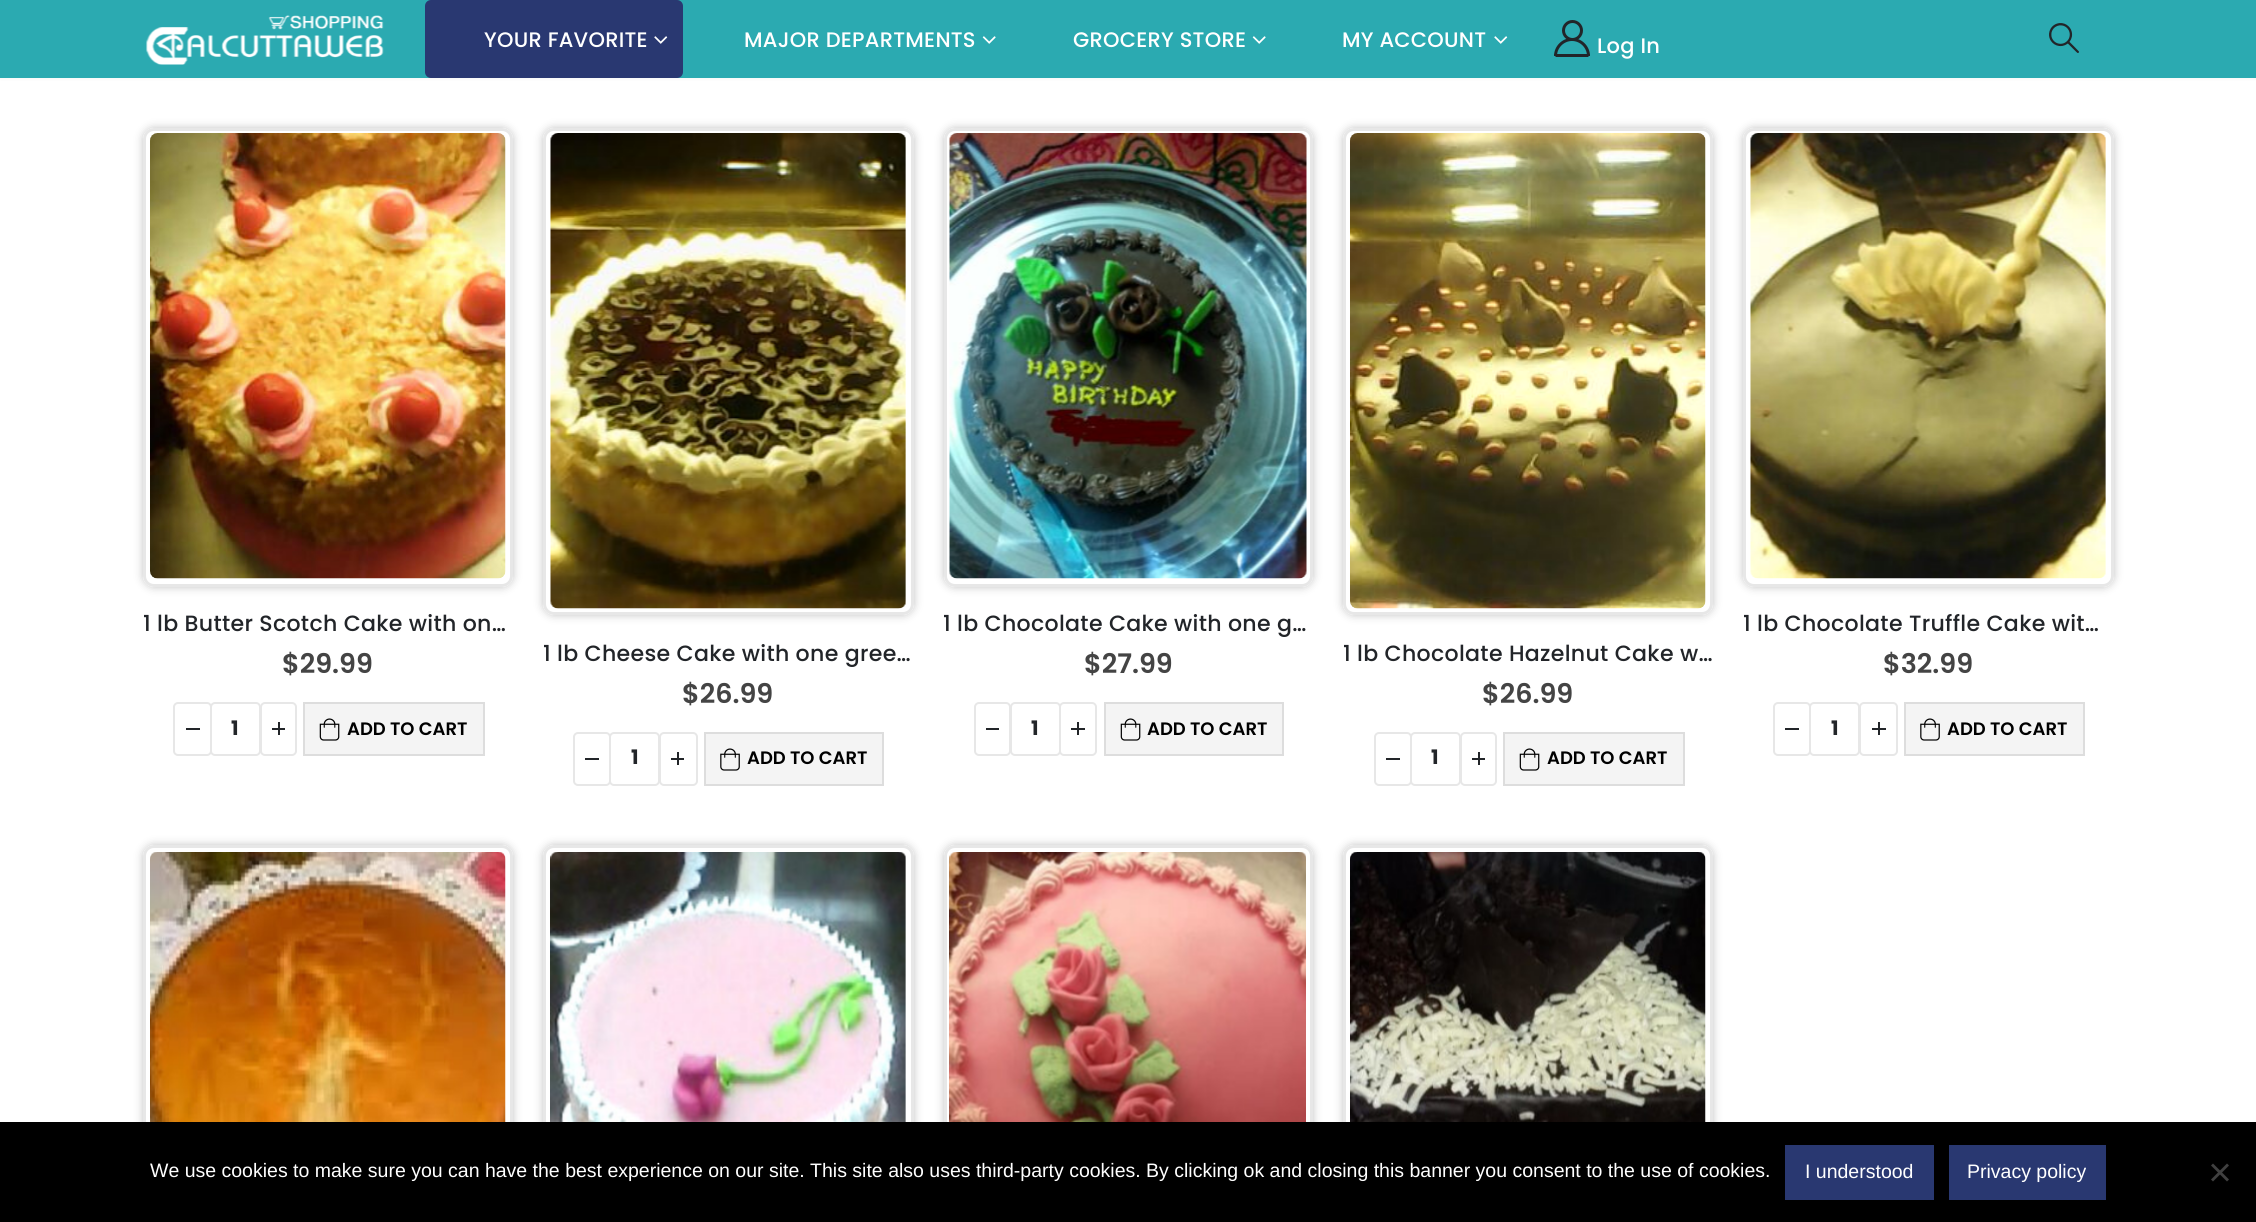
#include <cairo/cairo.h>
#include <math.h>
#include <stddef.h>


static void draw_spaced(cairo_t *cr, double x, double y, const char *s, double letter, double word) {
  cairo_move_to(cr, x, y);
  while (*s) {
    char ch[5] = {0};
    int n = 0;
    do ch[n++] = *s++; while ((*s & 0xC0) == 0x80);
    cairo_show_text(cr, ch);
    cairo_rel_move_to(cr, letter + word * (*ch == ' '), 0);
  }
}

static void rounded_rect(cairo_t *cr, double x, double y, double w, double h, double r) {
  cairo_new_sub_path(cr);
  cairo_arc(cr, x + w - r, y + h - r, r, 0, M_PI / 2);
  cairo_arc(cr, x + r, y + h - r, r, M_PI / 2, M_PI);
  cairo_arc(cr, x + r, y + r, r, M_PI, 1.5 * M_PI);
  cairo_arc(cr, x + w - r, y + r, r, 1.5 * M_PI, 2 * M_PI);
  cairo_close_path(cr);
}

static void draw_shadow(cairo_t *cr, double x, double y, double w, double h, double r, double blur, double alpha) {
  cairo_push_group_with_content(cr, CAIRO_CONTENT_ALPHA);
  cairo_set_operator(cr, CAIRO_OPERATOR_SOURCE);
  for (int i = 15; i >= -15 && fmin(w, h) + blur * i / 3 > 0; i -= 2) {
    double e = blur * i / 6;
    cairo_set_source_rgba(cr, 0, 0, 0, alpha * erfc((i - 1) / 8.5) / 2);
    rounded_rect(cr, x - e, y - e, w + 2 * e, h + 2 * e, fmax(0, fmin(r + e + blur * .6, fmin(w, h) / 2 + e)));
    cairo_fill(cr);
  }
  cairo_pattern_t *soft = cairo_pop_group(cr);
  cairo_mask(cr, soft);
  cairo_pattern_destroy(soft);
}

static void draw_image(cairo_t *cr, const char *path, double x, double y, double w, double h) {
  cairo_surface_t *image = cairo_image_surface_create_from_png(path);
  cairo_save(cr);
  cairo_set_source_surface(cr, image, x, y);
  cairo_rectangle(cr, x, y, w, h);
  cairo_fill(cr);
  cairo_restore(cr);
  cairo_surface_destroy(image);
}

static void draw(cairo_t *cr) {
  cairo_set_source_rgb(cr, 1, 1, 1);
  cairo_paint(cr);
  cairo_set_source_rgb(cr, 0, 0, 0);
  draw_shadow(cr, 0, 0, 2256, 78, 0, 2, 0.06);
  cairo_set_source_rgb(cr, 43 / 255.0, 170 / 255.0, 177 / 255.0);
  cairo_rectangle(cr, 0, 0, 2256, 78);
  cairo_fill(cr);
  draw_image(cr, "images/1.png", 146, 15, 238, 50);
  cairo_set_source_rgb(cr, 41 / 255.0, 56 / 255.0, 113 / 255.0);
  rounded_rect(cr, 425, 0, 258, 78, 6);
  cairo_fill(cr);
  draw_image(cr, "images/2.png", 654, 36, 14, 8);
  draw_image(cr, "images/3.png", 982, 36, 14, 8);
  draw_image(cr, "images/3.png", 1252, 36, 14, 8);
  draw_image(cr, "images/4.png", 1494, 36, 14, 8);
  cairo_arc(cr, 1572.5, 30.5, 9, 0, 2 * M_PI);
  cairo_set_source_rgb(cr, 34 / 255.0, 37 / 255.0, 41 / 255.0);
  cairo_set_line_width(cr, 3);
  cairo_stroke(cr);
  cairo_new_path(cr);
  cairo_move_to(cr, 1572, 39.5);
  cairo_curve_to(cr, 1581, 39.5, 1588.5, 47, 1588.5, 56);
  cairo_line_to(cr, 1588.5, 55.5);
  cairo_line_to(cr, 1555.5, 55.5);
  cairo_line_to(cr, 1555.5, 56);
  cairo_curve_to(cr, 1555.5, 47, 1563, 39.5, 1572, 39.5);
  cairo_close_path(cr);
  cairo_stroke(cr);
  draw_image(cr, "images/5.png", 2049, 23, 30, 30);
  cairo_save(cr);
  cairo_set_fill_rule(cr, CAIRO_FILL_RULE_EVEN_ODD);
  cairo_new_path(cr);
  cairo_move_to(cr, 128, 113);
  cairo_line_to(cr, 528, 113);
  cairo_line_to(cr, 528, 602);
  cairo_line_to(cr, 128, 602);
  cairo_close_path(cr);
  cairo_move_to(cr, 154, 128);
  cairo_line_to(cr, 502, 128);
  cairo_curve_to(cr, 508, 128, 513, 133, 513, 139);
  cairo_line_to(cr, 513, 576);
  cairo_curve_to(cr, 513, 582, 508, 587, 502, 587);
  cairo_line_to(cr, 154, 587);
  cairo_curve_to(cr, 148, 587, 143, 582, 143, 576);
  cairo_line_to(cr, 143, 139);
  cairo_curve_to(cr, 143, 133, 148, 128, 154, 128);
  cairo_close_path(cr);
  cairo_clip(cr);
  cairo_set_source_rgb(cr, 196 / 255.0, 196 / 255.0, 196 / 255.0);
  draw_shadow(cr, 143, 128, 370, 459, 11, 4.5, 1);
  cairo_restore(cr);
  rounded_rect(cr, 144.5, 129.5, 367, 456, 9.5);
  cairo_set_source_rgb(cr, 231 / 255.0, 231 / 255.0, 231 / 255.0);
  cairo_stroke(cr);
  draw_image(cr, "images/6.png", 150, 133, 356, 446);
  rounded_rect(cr, 211, 703, 49, 52, 4);
  cairo_set_line_width(cr, 2);
  cairo_stroke(cr);
  rounded_rect(cr, 174, 703, 37, 52, 4);
  cairo_stroke(cr);
  cairo_set_source_rgb(cr, 34 / 255.0, 37 / 255.0, 41 / 255.0);
  cairo_rectangle(cr, 186, 728, 14, 2);
  cairo_fill(cr);
  rounded_rect(cr, 261, 703, 35, 52, 4);
  cairo_set_source_rgb(cr, 231 / 255.0, 231 / 255.0, 231 / 255.0);
  cairo_stroke(cr);
  cairo_set_source_rgb(cr, 34 / 255.0, 37 / 255.0, 41 / 255.0);
  cairo_rectangle(cr, 272, 728, 13, 2);
  cairo_fill(cr);
  cairo_rectangle(cr, 278, 722, 2, 13);
  cairo_fill(cr);
  cairo_set_source_rgb(cr, 244 / 255.0, 244 / 255.0, 244 / 255.0);
  cairo_rectangle(cr, 304, 703, 180, 52);
  cairo_fill_preserve(cr);
  cairo_set_source_rgb(cr, 221 / 255.0, 221 / 255.0, 221 / 255.0);
  cairo_stroke(cr);
  draw_image(cr, "images/7.png", 319, 718, 21, 23);
  cairo_save(cr);
  cairo_set_fill_rule(cr, CAIRO_FILL_RULE_EVEN_ODD);
  cairo_new_path(cr);
  cairo_move_to(cr, 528, 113);
  cairo_line_to(cr, 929, 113);
  cairo_line_to(cr, 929, 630);
  cairo_line_to(cr, 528, 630);
  cairo_close_path(cr);
  cairo_move_to(cr, 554, 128);
  cairo_line_to(cr, 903, 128);
  cairo_curve_to(cr, 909, 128, 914, 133, 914, 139);
  cairo_line_to(cr, 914, 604);
  cairo_curve_to(cr, 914, 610, 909, 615, 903, 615);
  cairo_line_to(cr, 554, 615);
  cairo_curve_to(cr, 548, 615, 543, 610, 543, 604);
  cairo_line_to(cr, 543, 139);
  cairo_curve_to(cr, 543, 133, 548, 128, 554, 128);
  cairo_close_path(cr);
  cairo_clip(cr);
  cairo_set_source_rgb(cr, 196 / 255.0, 196 / 255.0, 196 / 255.0);
  draw_shadow(cr, 543, 128, 371, 487, 11, 4.5, 1);
  cairo_restore(cr);
  rounded_rect(cr, 544.5, 129.5, 368, 484, 9.5);
  cairo_set_source_rgb(cr, 231 / 255.0, 231 / 255.0, 231 / 255.0);
  cairo_set_line_width(cr, 3);
  cairo_stroke(cr);
  draw_image(cr, "images/8.png", 550, 133, 356, 476);
  rounded_rect(cr, 610, 733, 49, 52, 4);
  cairo_set_line_width(cr, 2);
  cairo_stroke(cr);
  rounded_rect(cr, 574, 733, 36, 52, 4);
  cairo_stroke(cr);
  cairo_set_source_rgb(cr, 34 / 255.0, 37 / 255.0, 41 / 255.0);
  cairo_rectangle(cr, 585, 758, 14, 2);
  cairo_fill(cr);
  rounded_rect(cr, 660, 733, 37, 52, 4);
  cairo_set_source_rgb(cr, 231 / 255.0, 231 / 255.0, 231 / 255.0);
  cairo_stroke(cr);
  cairo_set_source_rgb(cr, 34 / 255.0, 37 / 255.0, 41 / 255.0);
  cairo_rectangle(cr, 671, 758, 13, 2);
  cairo_fill(cr);
  cairo_rectangle(cr, 677, 752, 2, 13);
  cairo_fill(cr);
  cairo_set_source_rgb(cr, 244 / 255.0, 244 / 255.0, 244 / 255.0);
  cairo_rectangle(cr, 705, 733, 178, 52);
  cairo_fill_preserve(cr);
  cairo_set_source_rgb(cr, 221 / 255.0, 221 / 255.0, 221 / 255.0);
  cairo_stroke(cr);
  draw_image(cr, "images/9.png", 720, 748, 20, 23);
  cairo_save(cr);
  cairo_set_fill_rule(cr, CAIRO_FILL_RULE_EVEN_ODD);
  cairo_new_path(cr);
  cairo_move_to(cr, 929, 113);
  cairo_line_to(cr, 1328, 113);
  cairo_line_to(cr, 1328, 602);
  cairo_line_to(cr, 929, 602);
  cairo_close_path(cr);
  cairo_move_to(cr, 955, 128);
  cairo_line_to(cr, 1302, 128);
  cairo_curve_to(cr, 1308, 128, 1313, 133, 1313, 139);
  cairo_line_to(cr, 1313, 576);
  cairo_curve_to(cr, 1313, 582, 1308, 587, 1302, 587);
  cairo_line_to(cr, 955, 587);
  cairo_curve_to(cr, 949, 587, 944, 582, 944, 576);
  cairo_line_to(cr, 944, 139);
  cairo_curve_to(cr, 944, 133, 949, 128, 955, 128);
  cairo_close_path(cr);
  cairo_clip(cr);
  cairo_set_source_rgb(cr, 196 / 255.0, 196 / 255.0, 196 / 255.0);
  draw_shadow(cr, 944, 128, 369, 459, 11, 4.5, 1);
  cairo_restore(cr);
  rounded_rect(cr, 945.5, 129.5, 366, 456, 9.5);
  cairo_set_source_rgb(cr, 231 / 255.0, 231 / 255.0, 231 / 255.0);
  cairo_set_line_width(cr, 3);
  cairo_stroke(cr);
  draw_image(cr, "images/10.png", 949, 133, 358, 446);
  rounded_rect(cr, 1011, 703, 49, 52, 4);
  cairo_set_line_width(cr, 2);
  cairo_stroke(cr);
  rounded_rect(cr, 975, 703, 35, 52, 4);
  cairo_stroke(cr);
  cairo_set_source_rgb(cr, 34 / 255.0, 37 / 255.0, 41 / 255.0);
  cairo_rectangle(cr, 986, 728, 13, 2);
  cairo_fill(cr);
  rounded_rect(cr, 1060, 703, 36, 52, 4);
  cairo_set_source_rgb(cr, 231 / 255.0, 231 / 255.0, 231 / 255.0);
  cairo_stroke(cr);
  cairo_set_source_rgb(cr, 34 / 255.0, 37 / 255.0, 41 / 255.0);
  cairo_rectangle(cr, 1071, 728, 14, 2);
  cairo_fill(cr);
  cairo_rectangle(cr, 1077, 722, 2, 13);
  cairo_fill(cr);
  cairo_set_source_rgb(cr, 244 / 255.0, 244 / 255.0, 244 / 255.0);
  cairo_rectangle(cr, 1105, 703, 178, 52);
  cairo_fill_preserve(cr);
  cairo_set_source_rgb(cr, 221 / 255.0, 221 / 255.0, 221 / 255.0);
  cairo_stroke(cr);
  draw_image(cr, "images/7.png", 1120, 718, 21, 23);
  cairo_save(cr);
  cairo_set_fill_rule(cr, CAIRO_FILL_RULE_EVEN_ODD);
  cairo_new_path(cr);
  cairo_move_to(cr, 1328, 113);
  cairo_line_to(cr, 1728, 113);
  cairo_line_to(cr, 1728, 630);
  cairo_line_to(cr, 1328, 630);
  cairo_close_path(cr);
  cairo_move_to(cr, 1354, 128);
  cairo_line_to(cr, 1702, 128);
  cairo_curve_to(cr, 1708, 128, 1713, 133, 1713, 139);
  cairo_line_to(cr, 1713, 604);
  cairo_curve_to(cr, 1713, 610, 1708, 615, 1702, 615);
  cairo_line_to(cr, 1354, 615);
  cairo_curve_to(cr, 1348, 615, 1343, 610, 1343, 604);
  cairo_line_to(cr, 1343, 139);
  cairo_curve_to(cr, 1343, 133, 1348, 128, 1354, 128);
  cairo_close_path(cr);
  cairo_clip(cr);
  cairo_set_source_rgb(cr, 196 / 255.0, 196 / 255.0, 196 / 255.0);
  draw_shadow(cr, 1343, 128, 370, 487, 11, 4.5, 1);
  cairo_restore(cr);
  rounded_rect(cr, 1344.5, 129.5, 367, 484, 9.5);
  cairo_set_source_rgb(cr, 231 / 255.0, 231 / 255.0, 231 / 255.0);
  cairo_set_line_width(cr, 3);
  cairo_stroke(cr);
  draw_image(cr, "images/11.png", 1350, 133, 356, 476);
  rounded_rect(cr, 1411, 733, 49, 52, 4);
  cairo_set_line_width(cr, 2);
  cairo_stroke(cr);
  rounded_rect(cr, 1375, 733, 36, 52, 4);
  cairo_stroke(cr);
  cairo_set_source_rgb(cr, 34 / 255.0, 37 / 255.0, 41 / 255.0);
  cairo_rectangle(cr, 1386, 758, 14, 2);
  cairo_fill(cr);
  rounded_rect(cr, 1461, 733, 35, 52, 4);
  cairo_set_source_rgb(cr, 231 / 255.0, 231 / 255.0, 231 / 255.0);
  cairo_stroke(cr);
  cairo_set_source_rgb(cr, 34 / 255.0, 37 / 255.0, 41 / 255.0);
  cairo_rectangle(cr, 1472, 758, 13, 2);
  cairo_fill(cr);
  cairo_rectangle(cr, 1478, 752, 2, 13);
  cairo_fill(cr);
  cairo_set_source_rgb(cr, 244 / 255.0, 244 / 255.0, 244 / 255.0);
  cairo_rectangle(cr, 1504, 733, 180, 52);
  cairo_fill_preserve(cr);
  cairo_set_source_rgb(cr, 221 / 255.0, 221 / 255.0, 221 / 255.0);
  cairo_stroke(cr);
  draw_image(cr, "images/7.png", 1519, 748, 21, 23);
  cairo_save(cr);
  cairo_set_fill_rule(cr, CAIRO_FILL_RULE_EVEN_ODD);
  cairo_new_path(cr);
  cairo_move_to(cr, 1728, 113);
  cairo_line_to(cr, 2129, 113);
  cairo_line_to(cr, 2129, 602);
  cairo_line_to(cr, 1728, 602);
  cairo_close_path(cr);
  cairo_move_to(cr, 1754, 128);
  cairo_line_to(cr, 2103, 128);
  cairo_curve_to(cr, 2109, 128, 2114, 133, 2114, 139);
  cairo_line_to(cr, 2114, 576);
  cairo_curve_to(cr, 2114, 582, 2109, 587, 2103, 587);
  cairo_line_to(cr, 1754, 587);
  cairo_curve_to(cr, 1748, 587, 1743, 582, 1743, 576);
  cairo_line_to(cr, 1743, 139);
  cairo_curve_to(cr, 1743, 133, 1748, 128, 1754, 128);
  cairo_close_path(cr);
  cairo_clip(cr);
  cairo_set_source_rgb(cr, 196 / 255.0, 196 / 255.0, 196 / 255.0);
  draw_shadow(cr, 1743, 128, 371, 459, 11, 4.5, 1);
  cairo_restore(cr);
  rounded_rect(cr, 1744.5, 129.5, 368, 456, 9.5);
  cairo_set_source_rgb(cr, 231 / 255.0, 231 / 255.0, 231 / 255.0);
  cairo_set_line_width(cr, 3);
  cairo_stroke(cr);
  draw_image(cr, "images/12.png", 1750, 133, 356, 446);
  rounded_rect(cr, 1810, 703, 49, 52, 4);
  cairo_set_line_width(cr, 2);
  cairo_stroke(cr);
  rounded_rect(cr, 1774, 703, 36, 52, 4);
  cairo_stroke(cr);
  cairo_set_source_rgb(cr, 34 / 255.0, 37 / 255.0, 41 / 255.0);
  cairo_rectangle(cr, 1785, 728, 14, 2);
  cairo_fill(cr);
  rounded_rect(cr, 1860, 703, 37, 52, 4);
  cairo_set_source_rgb(cr, 231 / 255.0, 231 / 255.0, 231 / 255.0);
  cairo_stroke(cr);
  cairo_set_source_rgb(cr, 34 / 255.0, 37 / 255.0, 41 / 255.0);
  cairo_rectangle(cr, 1872, 728, 14, 2);
  cairo_fill(cr);
  cairo_rectangle(cr, 1878, 722, 2, 13);
  cairo_fill(cr);
  cairo_set_source_rgb(cr, 244 / 255.0, 244 / 255.0, 244 / 255.0);
  cairo_rectangle(cr, 1905, 703, 179, 52);
  cairo_fill_preserve(cr);
  cairo_set_source_rgb(cr, 221 / 255.0, 221 / 255.0, 221 / 255.0);
  cairo_stroke(cr);
  draw_image(cr, "images/9.png", 1920, 718, 20, 23);
  cairo_save(cr);
  cairo_set_fill_rule(cr, CAIRO_FILL_RULE_EVEN_ODD);
  cairo_new_path(cr);
  cairo_move_to(cr, 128, 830);
  cairo_line_to(cr, 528, 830);
  cairo_line_to(cr, 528, 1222);
  cairo_line_to(cr, 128, 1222);
  cairo_close_path(cr);
  cairo_move_to(cr, 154, 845);
  cairo_line_to(cr, 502, 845);
  cairo_curve_to(cr, 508, 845, 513, 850, 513, 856);
  cairo_line_to(cr, 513, 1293);
  cairo_curve_to(cr, 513, 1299, 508, 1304, 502, 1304);
  cairo_line_to(cr, 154, 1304);
  cairo_curve_to(cr, 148, 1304, 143, 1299, 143, 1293);
  cairo_line_to(cr, 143, 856);
  cairo_curve_to(cr, 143, 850, 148, 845, 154, 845);
  cairo_close_path(cr);
  cairo_clip(cr);
  cairo_set_source_rgb(cr, 196 / 255.0, 196 / 255.0, 196 / 255.0);
  draw_shadow(cr, 143, 845, 370, 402, 11, 4.5, 1);
  cairo_restore(cr);
  rounded_rect(cr, 144.5, 846.5, 367, 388, 9.5);
  cairo_set_source_rgb(cr, 231 / 255.0, 231 / 255.0, 231 / 255.0);
  cairo_set_line_width(cr, 3);
  cairo_stroke(cr);
  draw_image(cr, "images/13.png", 150, 852, 356, 270);
  cairo_save(cr);
  cairo_set_fill_rule(cr, CAIRO_FILL_RULE_EVEN_ODD);
  cairo_new_path(cr);
  cairo_move_to(cr, 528, 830);
  cairo_line_to(cr, 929, 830);
  cairo_line_to(cr, 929, 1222);
  cairo_line_to(cr, 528, 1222);
  cairo_close_path(cr);
  cairo_move_to(cr, 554, 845);
  cairo_line_to(cr, 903, 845);
  cairo_curve_to(cr, 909, 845, 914, 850, 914, 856);
  cairo_line_to(cr, 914, 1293);
  cairo_curve_to(cr, 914, 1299, 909, 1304, 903, 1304);
  cairo_line_to(cr, 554, 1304);
  cairo_curve_to(cr, 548, 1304, 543, 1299, 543, 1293);
  cairo_line_to(cr, 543, 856);
  cairo_curve_to(cr, 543, 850, 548, 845, 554, 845);
  cairo_close_path(cr);
  cairo_clip(cr);
  cairo_set_source_rgb(cr, 196 / 255.0, 196 / 255.0, 196 / 255.0);
  draw_shadow(cr, 543, 845, 371, 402, 11, 4.5, 1);
  cairo_restore(cr);
  rounded_rect(cr, 544.5, 846.5, 368, 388, 9.5);
  cairo_stroke(cr);
  draw_image(cr, "images/14.png", 550, 852, 356, 270);
  cairo_save(cr);
  cairo_set_fill_rule(cr, CAIRO_FILL_RULE_EVEN_ODD);
  cairo_new_path(cr);
  cairo_move_to(cr, 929, 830);
  cairo_line_to(cr, 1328, 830);
  cairo_line_to(cr, 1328, 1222);
  cairo_line_to(cr, 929, 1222);
  cairo_close_path(cr);
  cairo_move_to(cr, 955, 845);
  cairo_line_to(cr, 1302, 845);
  cairo_curve_to(cr, 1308, 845, 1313, 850, 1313, 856);
  cairo_line_to(cr, 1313, 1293);
  cairo_curve_to(cr, 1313, 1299, 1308, 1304, 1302, 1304);
  cairo_line_to(cr, 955, 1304);
  cairo_curve_to(cr, 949, 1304, 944, 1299, 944, 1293);
  cairo_line_to(cr, 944, 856);
  cairo_curve_to(cr, 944, 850, 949, 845, 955, 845);
  cairo_close_path(cr);
  cairo_clip(cr);
  cairo_set_source_rgb(cr, 196 / 255.0, 196 / 255.0, 196 / 255.0);
  draw_shadow(cr, 944, 845, 369, 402, 11, 4.5, 1);
  cairo_restore(cr);
  rounded_rect(cr, 945.5, 846.5, 366, 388, 9.5);
  cairo_stroke(cr);
  draw_image(cr, "images/15.png", 949, 852, 357, 270);
  cairo_save(cr);
  cairo_set_fill_rule(cr, CAIRO_FILL_RULE_EVEN_ODD);
  cairo_new_path(cr);
  cairo_move_to(cr, 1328, 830);
  cairo_line_to(cr, 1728, 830);
  cairo_line_to(cr, 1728, 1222);
  cairo_line_to(cr, 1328, 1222);
  cairo_close_path(cr);
  cairo_move_to(cr, 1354, 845);
  cairo_line_to(cr, 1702, 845);
  cairo_curve_to(cr, 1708, 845, 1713, 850, 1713, 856);
  cairo_line_to(cr, 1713, 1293);
  cairo_curve_to(cr, 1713, 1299, 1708, 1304, 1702, 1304);
  cairo_line_to(cr, 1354, 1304);
  cairo_curve_to(cr, 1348, 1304, 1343, 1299, 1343, 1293);
  cairo_line_to(cr, 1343, 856);
  cairo_curve_to(cr, 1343, 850, 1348, 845, 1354, 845);
  cairo_close_path(cr);
  cairo_clip(cr);
  cairo_set_source_rgb(cr, 196 / 255.0, 196 / 255.0, 196 / 255.0);
  draw_shadow(cr, 1343, 845, 370, 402, 11, 4.5, 1);
  cairo_restore(cr);
  rounded_rect(cr, 1344.5, 846.5, 367, 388, 9.5);
  cairo_stroke(cr);
  draw_image(cr, "images/16.png", 1350, 852, 356, 270);
  cairo_set_source_rgb(cr, 0, 0, 0);
  cairo_rectangle(cr, 0, 1122, 2256, 100);
  cairo_fill(cr);
  cairo_set_source_rgb(cr, 41 / 255.0, 56 / 255.0, 113 / 255.0);
  cairo_rectangle(cr, 1785, 1145, 149, 55);
  cairo_fill(cr);
  cairo_rectangle(cr, 1949, 1145, 157, 55);
  cairo_fill(cr);
  cairo_set_source_rgb(cr, 64 / 255.0, 64 / 255.0, 64 / 255.0);
  cairo_new_path(cr);
  cairo_move_to(cr, 2227, 1163.5);
  cairo_line_to(cr, 2229, 1165.5);
  cairo_line_to(cr, 2213, 1181.5);
  cairo_line_to(cr, 2211, 1179.5);
  cairo_close_path(cr);
  cairo_fill(cr);
  cairo_new_path(cr);
  cairo_move_to(cr, 2211, 1165.5);
  cairo_line_to(cr, 2213, 1163.5);
  cairo_line_to(cr, 2229, 1179.5);
  cairo_line_to(cr, 2227, 1181.5);
  cairo_close_path(cr);
  cairo_fill(cr);
  cairo_select_font_face(cr, "Poppins Medium", CAIRO_FONT_SLANT_NORMAL, CAIRO_FONT_WEIGHT_NORMAL);
  cairo_set_font_size(cr, 21);
  cairo_set_source_rgb(cr, 1, 1, 1);
  draw_spaced(cr, 484, 47, "YOUR FAVORITE", 0.25, 0);
  draw_spaced(cr, 744, 47, "MAJOR DEPARTMENTS", 0.25, 0);
  draw_spaced(cr, 1073, 47, "GROCERY STORE", 0.25, 0);
  draw_spaced(cr, 1342, 47, "MY ACCOUNT", 0.25, 0);
  draw_spaced(cr, 1597, 53, "Log In", 0.25, 0);
  cairo_set_font_size(cr, 22.1);
  cairo_set_source_rgb(cr, 34 / 255.0, 37 / 255.0, 41 / 255.0);
  draw_spaced(cr, 143, 631, "1 lb Butter Scotch Cake with on…", 0.3, 0);
  cairo_select_font_face(cr, "Poppins SemiBold", CAIRO_FONT_SLANT_NORMAL, CAIRO_FONT_WEIGHT_NORMAL);
  cairo_set_font_size(cr, 27);
  cairo_set_source_rgb(cr, 68 / 255.0, 68 / 255.0, 68 / 255.0);
  cairo_move_to(cr, 282, 673);
  cairo_show_text(cr, "$29.99");
  cairo_select_font_face(cr, "Poppins", CAIRO_FONT_SLANT_NORMAL, CAIRO_FONT_WEIGHT_BOLD);
  cairo_set_font_size(cr, 20);
  cairo_set_source_rgb(cr, 34 / 255.0, 37 / 255.0, 41 / 255.0);
  cairo_move_to(cr, 231, 735);
  cairo_show_text(cr, "1");
  cairo_select_font_face(cr, "Poppins SemiBold", CAIRO_FONT_SLANT_NORMAL, CAIRO_FONT_WEIGHT_NORMAL);
  cairo_set_font_size(cr, 18);
  cairo_set_source_rgb(cr, 0, 0, 0);
  cairo_move_to(cr, 347, 735);
  cairo_show_text(cr, "ADD TO CART");
  cairo_select_font_face(cr, "Poppins Medium", CAIRO_FONT_SLANT_NORMAL, CAIRO_FONT_WEIGHT_NORMAL);
  cairo_set_font_size(cr, 22.1);
  cairo_set_source_rgb(cr, 34 / 255.0, 37 / 255.0, 41 / 255.0);
  draw_spaced(cr, 543, 661, "1 lb Cheese Cake with one gree…", 0.3, 0);
  cairo_select_font_face(cr, "Poppins SemiBold", CAIRO_FONT_SLANT_NORMAL, CAIRO_FONT_WEIGHT_NORMAL);
  cairo_set_font_size(cr, 27);
  cairo_set_source_rgb(cr, 68 / 255.0, 68 / 255.0, 68 / 255.0);
  cairo_move_to(cr, 682, 703);
  cairo_show_text(cr, "$26.99");
  cairo_select_font_face(cr, "Poppins", CAIRO_FONT_SLANT_NORMAL, CAIRO_FONT_WEIGHT_BOLD);
  cairo_set_font_size(cr, 20);
  cairo_set_source_rgb(cr, 34 / 255.0, 37 / 255.0, 41 / 255.0);
  cairo_move_to(cr, 631, 764);
  cairo_show_text(cr, "1");
  cairo_select_font_face(cr, "Poppins SemiBold", CAIRO_FONT_SLANT_NORMAL, CAIRO_FONT_WEIGHT_NORMAL);
  cairo_set_font_size(cr, 18);
  cairo_set_source_rgb(cr, 0, 0, 0);
  cairo_move_to(cr, 747, 764);
  cairo_show_text(cr, "ADD TO CART");
  cairo_select_font_face(cr, "Poppins Medium", CAIRO_FONT_SLANT_NORMAL, CAIRO_FONT_WEIGHT_NORMAL);
  cairo_set_font_size(cr, 22.1);
  cairo_set_source_rgb(cr, 34 / 255.0, 37 / 255.0, 41 / 255.0);
  draw_spaced(cr, 943, 631, "1 lb Chocolate Cake with one g…", 0.3, 0);
  cairo_select_font_face(cr, "Poppins SemiBold", CAIRO_FONT_SLANT_NORMAL, CAIRO_FONT_WEIGHT_NORMAL);
  cairo_set_font_size(cr, 27);
  cairo_set_source_rgb(cr, 68 / 255.0, 68 / 255.0, 68 / 255.0);
  cairo_move_to(cr, 1084, 673);
  cairo_show_text(cr, "$27.99");
  cairo_select_font_face(cr, "Poppins", CAIRO_FONT_SLANT_NORMAL, CAIRO_FONT_WEIGHT_BOLD);
  cairo_set_font_size(cr, 20);
  cairo_set_source_rgb(cr, 34 / 255.0, 37 / 255.0, 41 / 255.0);
  cairo_move_to(cr, 1031, 735);
  cairo_show_text(cr, "1");
  cairo_select_font_face(cr, "Poppins SemiBold", CAIRO_FONT_SLANT_NORMAL, CAIRO_FONT_WEIGHT_NORMAL);
  cairo_set_font_size(cr, 18);
  cairo_set_source_rgb(cr, 0, 0, 0);
  cairo_move_to(cr, 1147, 735);
  cairo_show_text(cr, "ADD TO CART");
  cairo_select_font_face(cr, "Poppins Medium", CAIRO_FONT_SLANT_NORMAL, CAIRO_FONT_WEIGHT_NORMAL);
  cairo_set_font_size(cr, 22.1);
  cairo_set_source_rgb(cr, 34 / 255.0, 37 / 255.0, 41 / 255.0);
  draw_spaced(cr, 1343, 661, "1 lb Chocolate Hazelnut Cake w…", 0.3, 0);
  cairo_select_font_face(cr, "Poppins SemiBold", CAIRO_FONT_SLANT_NORMAL, CAIRO_FONT_WEIGHT_NORMAL);
  cairo_set_font_size(cr, 27);
  cairo_set_source_rgb(cr, 68 / 255.0, 68 / 255.0, 68 / 255.0);
  cairo_move_to(cr, 1482, 703);
  cairo_show_text(cr, "$26.99");
  cairo_select_font_face(cr, "Poppins", CAIRO_FONT_SLANT_NORMAL, CAIRO_FONT_WEIGHT_BOLD);
  cairo_set_font_size(cr, 20);
  cairo_set_source_rgb(cr, 34 / 255.0, 37 / 255.0, 41 / 255.0);
  cairo_move_to(cr, 1431, 764);
  cairo_show_text(cr, "1");
  cairo_select_font_face(cr, "Poppins SemiBold", CAIRO_FONT_SLANT_NORMAL, CAIRO_FONT_WEIGHT_NORMAL);
  cairo_set_font_size(cr, 18);
  cairo_set_source_rgb(cr, 0, 0, 0);
  cairo_move_to(cr, 1547, 764);
  cairo_show_text(cr, "ADD TO CART");
  cairo_select_font_face(cr, "Poppins Medium", CAIRO_FONT_SLANT_NORMAL, CAIRO_FONT_WEIGHT_NORMAL);
  cairo_set_font_size(cr, 22.1);
  cairo_set_source_rgb(cr, 34 / 255.0, 37 / 255.0, 41 / 255.0);
  draw_spaced(cr, 1743, 631, "1 lb Chocolate Truffle Cake wit…", 0.3, 0);
  cairo_select_font_face(cr, "Poppins SemiBold", CAIRO_FONT_SLANT_NORMAL, CAIRO_FONT_WEIGHT_NORMAL);
  cairo_set_font_size(cr, 27);
  cairo_set_source_rgb(cr, 68 / 255.0, 68 / 255.0, 68 / 255.0);
  cairo_move_to(cr, 1883, 673);
  cairo_show_text(cr, "$32.99");
  cairo_select_font_face(cr, "Poppins", CAIRO_FONT_SLANT_NORMAL, CAIRO_FONT_WEIGHT_BOLD);
  cairo_set_font_size(cr, 20);
  cairo_set_source_rgb(cr, 34 / 255.0, 37 / 255.0, 41 / 255.0);
  cairo_move_to(cr, 1831, 735);
  cairo_show_text(cr, "1");
  cairo_select_font_face(cr, "Poppins SemiBold", CAIRO_FONT_SLANT_NORMAL, CAIRO_FONT_WEIGHT_NORMAL);
  cairo_set_font_size(cr, 18);
  cairo_set_source_rgb(cr, 0, 0, 0);
  cairo_move_to(cr, 1947, 735);
  cairo_show_text(cr, "ADD TO CART");
  cairo_select_font_face(cr, "Liberation Sans", CAIRO_FONT_SLANT_NORMAL, CAIRO_FONT_WEIGHT_NORMAL);
  cairo_set_font_size(cr, 19.5);
  cairo_set_source_rgb(cr, 1, 1, 1);
  cairo_move_to(cr, 150, 1177);
  cairo_show_text(cr, "We use cookies to make sure you can have the best experience on our site. This site also uses third-party cookies. By clicking ok and closing this banner you consent to the use of cookies.");
  cairo_move_to(cr, 1805, 1178);
  cairo_show_text(cr, "I understood");
  cairo_move_to(cr, 1967, 1178);
  cairo_show_text(cr, "Privacy policy");
}

int main(void) {
  cairo_surface_t *surface = cairo_image_surface_create(CAIRO_FORMAT_RGB24, 2256, 1222);
  cairo_t *cr = cairo_create(surface);
  cairo_font_options_t *options = cairo_font_options_create();
  cairo_font_options_set_hint_metrics(options, CAIRO_HINT_METRICS_OFF);
  cairo_font_options_set_hint_style(options, CAIRO_HINT_STYLE_NONE);
  cairo_set_font_options(cr, options);
  cairo_set_miter_limit(cr, 4);
  draw(cr);
  cairo_surface_write_to_png(surface, "out.png");
  cairo_font_options_destroy(options);
  cairo_destroy(cr);
  cairo_surface_destroy(surface);
  return 0;
}
